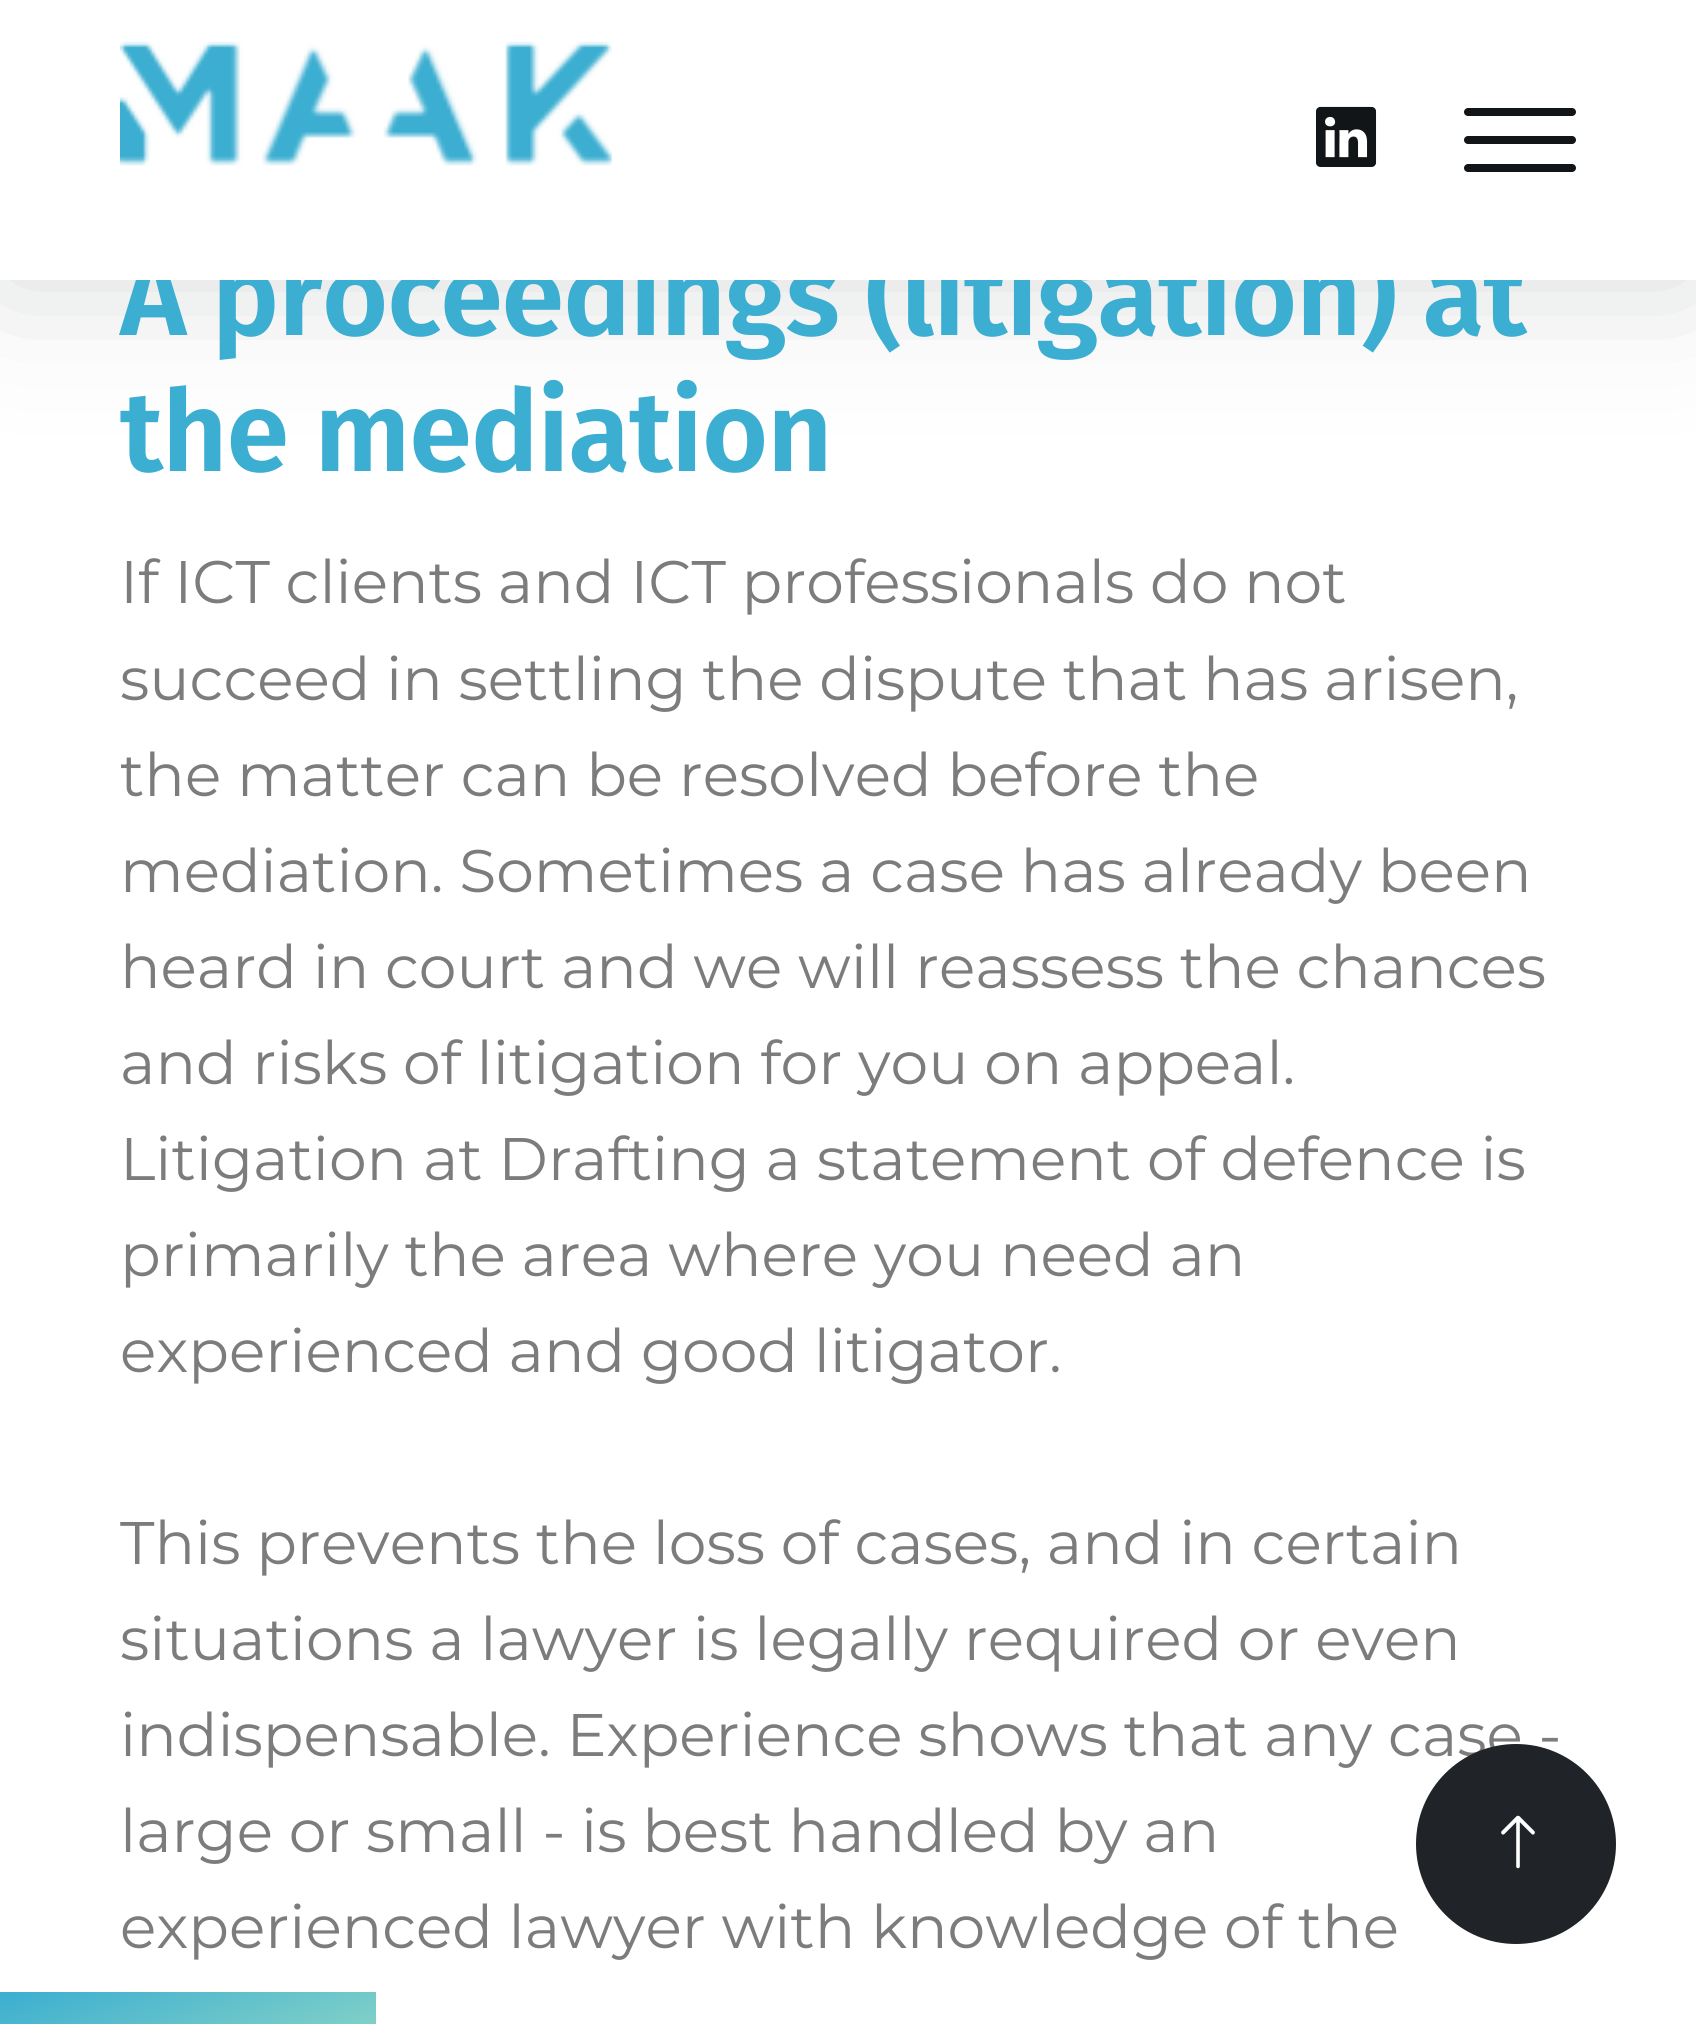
#include <cairo/cairo.h>
#include <math.h>
#include <stddef.h>


static void draw_spaced(cairo_t *cr, double x, double y, const char *s, double letter, double word) {
  cairo_move_to(cr, x, y);
  while (*s) {
    char ch[5] = {0};
    int n = 0;
    do ch[n++] = *s++; while ((*s & 0xC0) == 0x80);
    cairo_show_text(cr, ch);
    cairo_rel_move_to(cr, letter + word * (*ch == ' '), 0);
  }
}

static void rounded_rect(cairo_t *cr, double x, double y, double w, double h, double r) {
  cairo_new_sub_path(cr);
  cairo_arc(cr, x + w - r, y + h - r, r, 0, M_PI / 2);
  cairo_arc(cr, x + r, y + h - r, r, M_PI / 2, M_PI);
  cairo_arc(cr, x + r, y + r, r, M_PI, 1.5 * M_PI);
  cairo_arc(cr, x + w - r, y + r, r, 1.5 * M_PI, 2 * M_PI);
  cairo_close_path(cr);
}

static void draw_shadow(cairo_t *cr, double x, double y, double w, double h, double r, double blur, double alpha) {
  cairo_push_group_with_content(cr, CAIRO_CONTENT_ALPHA);
  cairo_set_operator(cr, CAIRO_OPERATOR_SOURCE);
  for (int i = 15; i >= -15 && fmin(w, h) + blur * i / 3 > 0; i -= 2) {
    double e = blur * i / 6;
    cairo_set_source_rgba(cr, 0, 0, 0, alpha * erfc((i - 1) / 8.5) / 2);
    rounded_rect(cr, x - e, y - e, w + 2 * e, h + 2 * e, fmax(0, fmin(r + e + blur * .6, fmin(w, h) / 2 + e)));
    cairo_fill(cr);
  }
  cairo_pattern_t *soft = cairo_pop_group(cr);
  cairo_mask(cr, soft);
  cairo_pattern_destroy(soft);
}

static void draw_image(cairo_t *cr, const char *path, double x, double y, double w, double h) {
  cairo_surface_t *image = cairo_image_surface_create_from_png(path);
  cairo_save(cr);
  cairo_set_source_surface(cr, image, x, y);
  cairo_rectangle(cr, x, y, w, h);
  cairo_fill(cr);
  cairo_restore(cr);
  cairo_surface_destroy(image);
}

static void draw(cairo_t *cr) {
  cairo_pattern_t *gradient;
  cairo_set_source_rgb(cr, 1, 1, 1);
  cairo_paint(cr);
  cairo_set_source_rgb(cr, 22 / 255.0, 25 / 255.0, 28 / 255.0);
  draw_shadow(cr, 0, 0, 1696, 280, 0, 72, 0.17);
  gradient = cairo_pattern_create_linear(161, 1933, 215, 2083);
  cairo_pattern_add_color_stop_rgba(gradient, 0, 59 / 255.0, 174 / 255.0, 209 / 255.0, 1);
  cairo_pattern_add_color_stop_rgba(gradient, 1, 128 / 255.0, 208 / 255.0, 199 / 255.0, 1);
  cairo_set_source(cr, gradient);
  cairo_pattern_destroy(gradient);
  cairo_rectangle(cr, 0, 1992, 376, 32);
  cairo_fill(cr);
  cairo_select_font_face(cr, "Fira Sans SemiBold", CAIRO_FONT_SLANT_NORMAL, CAIRO_FONT_WEIGHT_NORMAL);
  cairo_set_font_size(cr, 113.5);
  cairo_set_source_rgb(cr, 59 / 255.0, 174 / 255.0, 209 / 255.0);
  draw_spaced(cr, 120, 335, "A proceedings (litigation) at", -1.2, 0);
  cairo_set_source_rgb(cr, 1, 1, 1);
  cairo_rectangle(cr, 0, 0, 1696, 280);
  cairo_fill(cr);
  cairo_set_source_rgb(cr, 18 / 255.0, 21 / 255.0, 24 / 255.0);
  rounded_rect(cr, 1464, 164, 112, 8, 4);
  cairo_fill(cr);
  rounded_rect(cr, 1464, 108, 112, 8, 4);
  cairo_fill(cr);
  rounded_rect(cr, 1464, 136, 112, 8, 4);
  cairo_fill(cr);
  draw_image(cr, "images/2.png", 1316, 106, 61, 61);
  draw_image(cr, "images/1.png", 120, 41, 492, 125);
  cairo_set_source_rgb(cr, 59 / 255.0, 174 / 255.0, 209 / 255.0);
  draw_spaced(cr, 120, 471, "the mediation", -1.2, 0);
  cairo_select_font_face(cr, "Montserrat", CAIRO_FONT_SLANT_NORMAL, CAIRO_FONT_WEIGHT_NORMAL);
  cairo_set_font_size(cr, 60);
  cairo_set_source_rgb(cr, 124 / 255.0, 124 / 255.0, 124 / 255.0);
  cairo_move_to(cr, 120, 603);
  cairo_show_text(cr, "If ICT clients and ICT professionals do not");
  cairo_move_to(cr, 120, 700);
  cairo_show_text(cr, "succeed in settling the dispute that has arisen,");
  cairo_move_to(cr, 120, 796);
  cairo_show_text(cr, "the matter can be resolved before the");
  cairo_move_to(cr, 120, 892);
  cairo_show_text(cr, "mediation. Sometimes a case has already been");
  cairo_move_to(cr, 120, 988);
  cairo_show_text(cr, "heard in court and we will reassess the chances");
  cairo_move_to(cr, 120, 1084);
  cairo_show_text(cr, "and risks of litigation for you on appeal.");
  cairo_move_to(cr, 120, 1180);
  cairo_show_text(cr, "Litigation at Drafting a statement of defence is");
  cairo_move_to(cr, 120, 1276);
  cairo_show_text(cr, "primarily the area where you need an");
  cairo_move_to(cr, 120, 1372);
  cairo_show_text(cr, "experienced and good litigator.");
  cairo_move_to(cr, 120, 1564);
  cairo_show_text(cr, "This prevents the loss of cases, and in certain");
  cairo_move_to(cr, 120, 1660);
  cairo_show_text(cr, "situations a lawyer is legally required or even");
  cairo_move_to(cr, 120, 1756);
  cairo_show_text(cr, "indispensable. Experience shows that any case -");
  cairo_move_to(cr, 120, 1852);
  cairo_show_text(cr, "large or small - is best handled by an");
  cairo_move_to(cr, 120, 1948);
  cairo_show_text(cr, "experienced lawyer with knowledge of the");
  cairo_set_source_rgb(cr, 32 / 255.0, 36 / 255.0, 40 / 255.0);
  cairo_new_path(cr);
  cairo_arc(cr, 1516, 1844, 100, 0, 2 * M_PI);
  cairo_fill(cr);
  draw_image(cr, "images/3.png", 1501, 1815, 34, 54);
}

int main(void) {
  cairo_surface_t *surface = cairo_image_surface_create(CAIRO_FORMAT_RGB24, 1696, 2024);
  cairo_t *cr = cairo_create(surface);
  cairo_font_options_t *options = cairo_font_options_create();
  cairo_font_options_set_hint_metrics(options, CAIRO_HINT_METRICS_OFF);
  cairo_font_options_set_hint_style(options, CAIRO_HINT_STYLE_NONE);
  cairo_set_font_options(cr, options);
  cairo_set_miter_limit(cr, 4);
  draw(cr);
  cairo_surface_write_to_png(surface, "out.png");
  cairo_font_options_destroy(options);
  cairo_destroy(cr);
  cairo_surface_destroy(surface);
  return 0;
}
